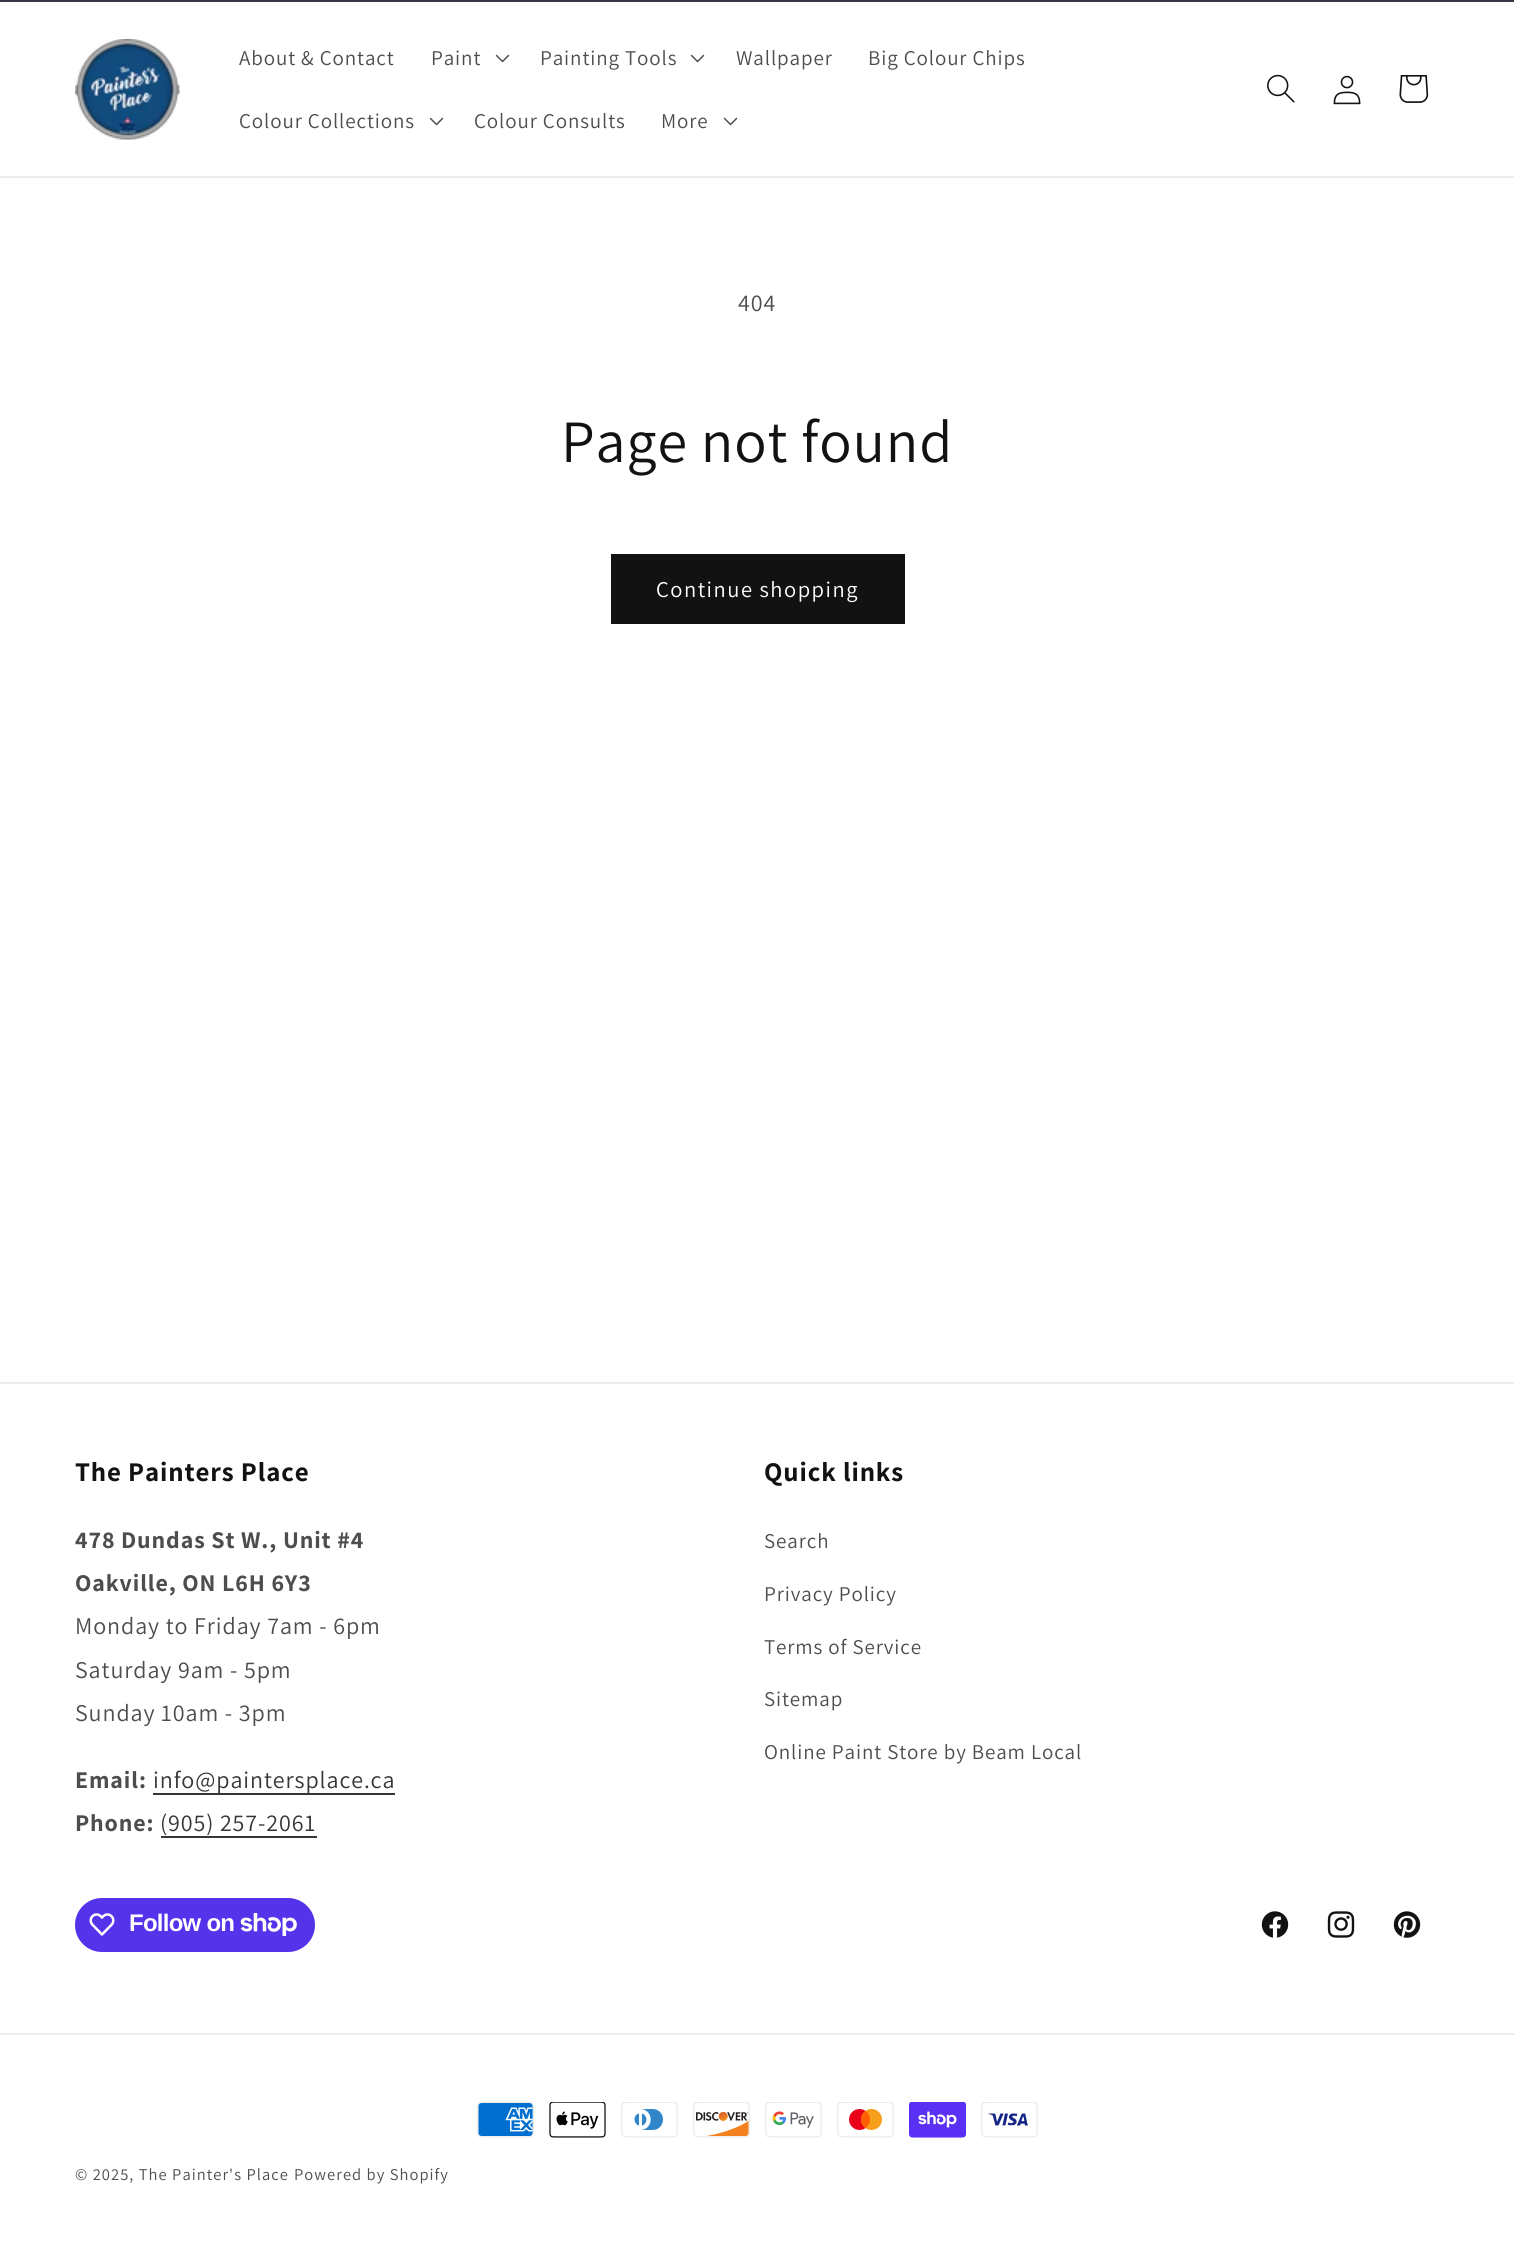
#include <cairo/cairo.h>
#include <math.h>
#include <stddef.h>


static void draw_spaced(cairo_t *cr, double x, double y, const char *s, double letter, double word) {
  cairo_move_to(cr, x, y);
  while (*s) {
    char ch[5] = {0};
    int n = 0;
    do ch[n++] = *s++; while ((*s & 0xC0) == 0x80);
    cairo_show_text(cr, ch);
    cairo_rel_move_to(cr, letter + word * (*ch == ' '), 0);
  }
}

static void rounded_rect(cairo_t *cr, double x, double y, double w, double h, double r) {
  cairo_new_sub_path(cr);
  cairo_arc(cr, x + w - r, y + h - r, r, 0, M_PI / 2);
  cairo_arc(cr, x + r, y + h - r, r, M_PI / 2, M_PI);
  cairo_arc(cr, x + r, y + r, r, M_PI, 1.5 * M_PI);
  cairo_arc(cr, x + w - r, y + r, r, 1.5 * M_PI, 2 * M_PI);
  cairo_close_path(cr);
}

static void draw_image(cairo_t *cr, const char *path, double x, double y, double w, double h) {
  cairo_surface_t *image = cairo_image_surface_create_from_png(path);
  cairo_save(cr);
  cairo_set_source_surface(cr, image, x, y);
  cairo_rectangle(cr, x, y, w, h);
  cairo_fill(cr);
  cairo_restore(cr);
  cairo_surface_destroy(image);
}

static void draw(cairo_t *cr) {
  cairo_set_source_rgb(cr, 1, 1, 1);
  cairo_paint(cr);
  cairo_set_source_rgb(cr, 54 / 255.0, 57 / 255.0, 67 / 255.0);
  cairo_rectangle(cr, 0, 0, 1514, 2);
  cairo_fill(cr);
  cairo_set_source_rgb(cr, 236 / 255.0, 236 / 255.0, 236 / 255.0);
  cairo_rectangle(cr, 0, 176, 1514, 2);
  cairo_fill(cr);
  draw_image(cr, "images/1.png", 75, 39, 105, 101);
  draw_image(cr, "images/2.png", 495, 54, 15, 9);
  draw_image(cr, "images/2.png", 690, 54, 15, 9);
  draw_image(cr, "images/2.png", 429, 117, 15, 9);
  draw_image(cr, "images/2.png", 723, 117, 15, 9);
  draw_image(cr, "images/3.png", 1267, 74, 28, 29);
  draw_image(cr, "images/4.png", 1333, 75, 28, 30);
  draw_image(cr, "images/5.png", 1399, 75, 30, 28);
  cairo_set_source_rgb(cr, 18 / 255.0, 18 / 255.0, 18 / 255.0);
  cairo_rectangle(cr, 611, 554, 294, 70);
  cairo_fill(cr);
  cairo_set_source_rgb(cr, 236 / 255.0, 236 / 255.0, 236 / 255.0);
  cairo_rectangle(cr, 0, 1382, 1514, 2);
  cairo_fill(cr);
  cairo_set_source_rgb(cr, 54 / 255.0, 54 / 255.0, 54 / 255.0);
  cairo_rectangle(cr, 153, 1793, 242, 2);
  cairo_fill(cr);
  cairo_rectangle(cr, 161, 1836, 156, 2);
  cairo_fill(cr);
  cairo_set_source_rgb(cr, 84 / 255.0, 51 / 255.0, 235 / 255.0);
  rounded_rect(cr, 75, 1898, 240, 54, 27);
  cairo_fill(cr);
  draw_image(cr, "images/6.png", 89, 1913, 26, 23);
  draw_image(cr, "images/7.png", 240, 1913, 57, 23);
  draw_image(cr, "images/8.png", 1261, 1911, 28, 27);
  draw_image(cr, "images/9.png", 1327, 1911, 28, 27);
  draw_image(cr, "images/10.png", 1393, 1911, 28, 27);
  cairo_set_source_rgb(cr, 236 / 255.0, 236 / 255.0, 236 / 255.0);
  cairo_rectangle(cr, 0, 2033, 1514, 2);
  cairo_fill(cr);
  draw_image(cr, "images/11.png", 477, 2102, 57, 36);
  draw_image(cr, "images/12.png", 549, 2102, 57, 36);
  draw_image(cr, "images/13.png", 621, 2102, 57, 36);
  draw_image(cr, "images/14.png", 693, 2102, 57, 36);
  draw_image(cr, "images/15.png", 765, 2102, 57, 36);
  draw_image(cr, "images/16.png", 837, 2102, 57, 36);
  draw_image(cr, "images/17.png", 909, 2102, 57, 36);
  draw_image(cr, "images/18.png", 981, 2102, 57, 36);
  cairo_select_font_face(cr, "Assistant", CAIRO_FONT_SLANT_NORMAL, CAIRO_FONT_WEIGHT_NORMAL);
  cairo_set_font_size(cr, 21);
  cairo_set_source_rgb(cr, 77 / 255.0, 77 / 255.0, 77 / 255.0);
  draw_spaced(cr, 239, 65, "About & Contact", 0.9, 0);
  draw_spaced(cr, 431, 65, "Paint", 0.9, 0);
  draw_spaced(cr, 540, 65, "Painting Tools", 0.9, 0);
  draw_spaced(cr, 736, 65, "Wallpaper", 0.9, 0);
  draw_spaced(cr, 868, 65, "Big Colour Chips", 0.9, 0);
  draw_spaced(cr, 239, 128, "Colour Collections", 0.9, 0);
  draw_spaced(cr, 474, 128, "Colour Consults", 0.9, 0);
  draw_spaced(cr, 661, 128, "More", 0.9, 0);
  cairo_set_font_size(cr, 24);
  draw_spaced(cr, 738, 311, "404", 0.9, 0);
  cairo_set_font_size(cr, 60);
  cairo_set_source_rgb(cr, 18 / 255.0, 18 / 255.0, 18 / 255.0);
  draw_spaced(cr, 561, 462, "Page not found", 0.9, 0);
  cairo_set_font_size(cr, 22.5);
  cairo_set_source_rgb(cr, 1, 1, 1);
  draw_spaced(cr, 656, 597, "Continue shopping", 1.5, 0);
  cairo_select_font_face(cr, "Assistant", CAIRO_FONT_SLANT_NORMAL, CAIRO_FONT_WEIGHT_BOLD);
  cairo_set_font_size(cr, 27);
  cairo_set_source_rgb(cr, 18 / 255.0, 18 / 255.0, 18 / 255.0);
  draw_spaced(cr, 75, 1481, "The Painters Place", 0.9, 0);
  cairo_set_font_size(cr, 24);
  cairo_set_source_rgb(cr, 77 / 255.0, 77 / 255.0, 77 / 255.0);
  draw_spaced(cr, 75, 1548, "478 Dundas St W., Unit #4", 0.9, 0);
  draw_spaced(cr, 75, 1591, "Oakville, ON L6H 6Y3", 0.9, 0);
  cairo_select_font_face(cr, "Assistant", CAIRO_FONT_SLANT_NORMAL, CAIRO_FONT_WEIGHT_NORMAL);
  draw_spaced(cr, 75, 1634, "Monday to Friday 7am - 6pm", 0.9, 0);
  draw_spaced(cr, 75, 1678, "Saturday 9am - 5pm", 0.9, 0);
  draw_spaced(cr, 75, 1721, "Sunday 10am - 3pm", 0.9, 0);
  cairo_select_font_face(cr, "Assistant", CAIRO_FONT_SLANT_NORMAL, CAIRO_FONT_WEIGHT_BOLD);
  draw_spaced(cr, 75, 1788, "Email:", 0.9, 0);
  cairo_select_font_face(cr, "Assistant", CAIRO_FONT_SLANT_NORMAL, CAIRO_FONT_WEIGHT_NORMAL);
  cairo_set_source_rgb(cr, 54 / 255.0, 54 / 255.0, 54 / 255.0);
  draw_spaced(cr, 153, 1788, "info@paintersplace.ca", 0.9, 0);
  cairo_select_font_face(cr, "Assistant", CAIRO_FONT_SLANT_NORMAL, CAIRO_FONT_WEIGHT_BOLD);
  cairo_set_source_rgb(cr, 77 / 255.0, 77 / 255.0, 77 / 255.0);
  draw_spaced(cr, 75, 1831, "Phone:", 0.9, 0);
  cairo_select_font_face(cr, "Assistant", CAIRO_FONT_SLANT_NORMAL, CAIRO_FONT_WEIGHT_NORMAL);
  cairo_set_source_rgb(cr, 54 / 255.0, 54 / 255.0, 54 / 255.0);
  draw_spaced(cr, 160, 1831, "(905) 257-2061", 0.9, 0);
  cairo_select_font_face(cr, "Assistant", CAIRO_FONT_SLANT_NORMAL, CAIRO_FONT_WEIGHT_BOLD);
  cairo_set_font_size(cr, 27);
  cairo_set_source_rgb(cr, 18 / 255.0, 18 / 255.0, 18 / 255.0);
  draw_spaced(cr, 764, 1481, "Quick links", 0.9, 0);
  cairo_select_font_face(cr, "Assistant", CAIRO_FONT_SLANT_NORMAL, CAIRO_FONT_WEIGHT_NORMAL);
  cairo_set_font_size(cr, 21);
  cairo_set_source_rgb(cr, 77 / 255.0, 77 / 255.0, 77 / 255.0);
  draw_spaced(cr, 764, 1548, "Search", 0.9, 0);
  draw_spaced(cr, 764, 1601, "Privacy Policy", 0.9, 0);
  draw_spaced(cr, 764, 1654, "Terms of Service", 0.9, 0);
  draw_spaced(cr, 764, 1706, "Sitemap", 0.9, 0);
  draw_spaced(cr, 764, 1759, "Online Paint Store by Beam Local", 0.9, 0);
  cairo_select_font_face(cr, "Liberation Sans", CAIRO_FONT_SLANT_NORMAL, CAIRO_FONT_WEIGHT_BOLD);
  cairo_set_font_size(cr, 24);
  cairo_set_source_rgb(cr, 1, 1, 1);
  draw_spaced(cr, 129, 1931, "Follow on", -0.75, 0);
  cairo_select_font_face(cr, "Assistant", CAIRO_FONT_SLANT_NORMAL, CAIRO_FONT_WEIGHT_NORMAL);
  cairo_set_font_size(cr, 16.5);
  cairo_set_source_rgb(cr, 77 / 255.0, 77 / 255.0, 77 / 255.0);
  draw_spaced(cr, 75, 2180, "© 2025, The Painter's Place", 1.05, 0);
  draw_spaced(cr, 294, 2180, "Powered by Shopify", 1.05, 0);
}

int main(void) {
  cairo_surface_t *surface = cairo_image_surface_create(CAIRO_FORMAT_RGB24, 1514, 2244);
  cairo_t *cr = cairo_create(surface);
  cairo_font_options_t *options = cairo_font_options_create();
  cairo_font_options_set_hint_metrics(options, CAIRO_HINT_METRICS_OFF);
  cairo_font_options_set_hint_style(options, CAIRO_HINT_STYLE_NONE);
  cairo_set_font_options(cr, options);
  cairo_set_miter_limit(cr, 4);
  draw(cr);
  cairo_surface_write_to_png(surface, "out.png");
  cairo_font_options_destroy(options);
  cairo_destroy(cr);
  cairo_surface_destroy(surface);
  return 0;
}
